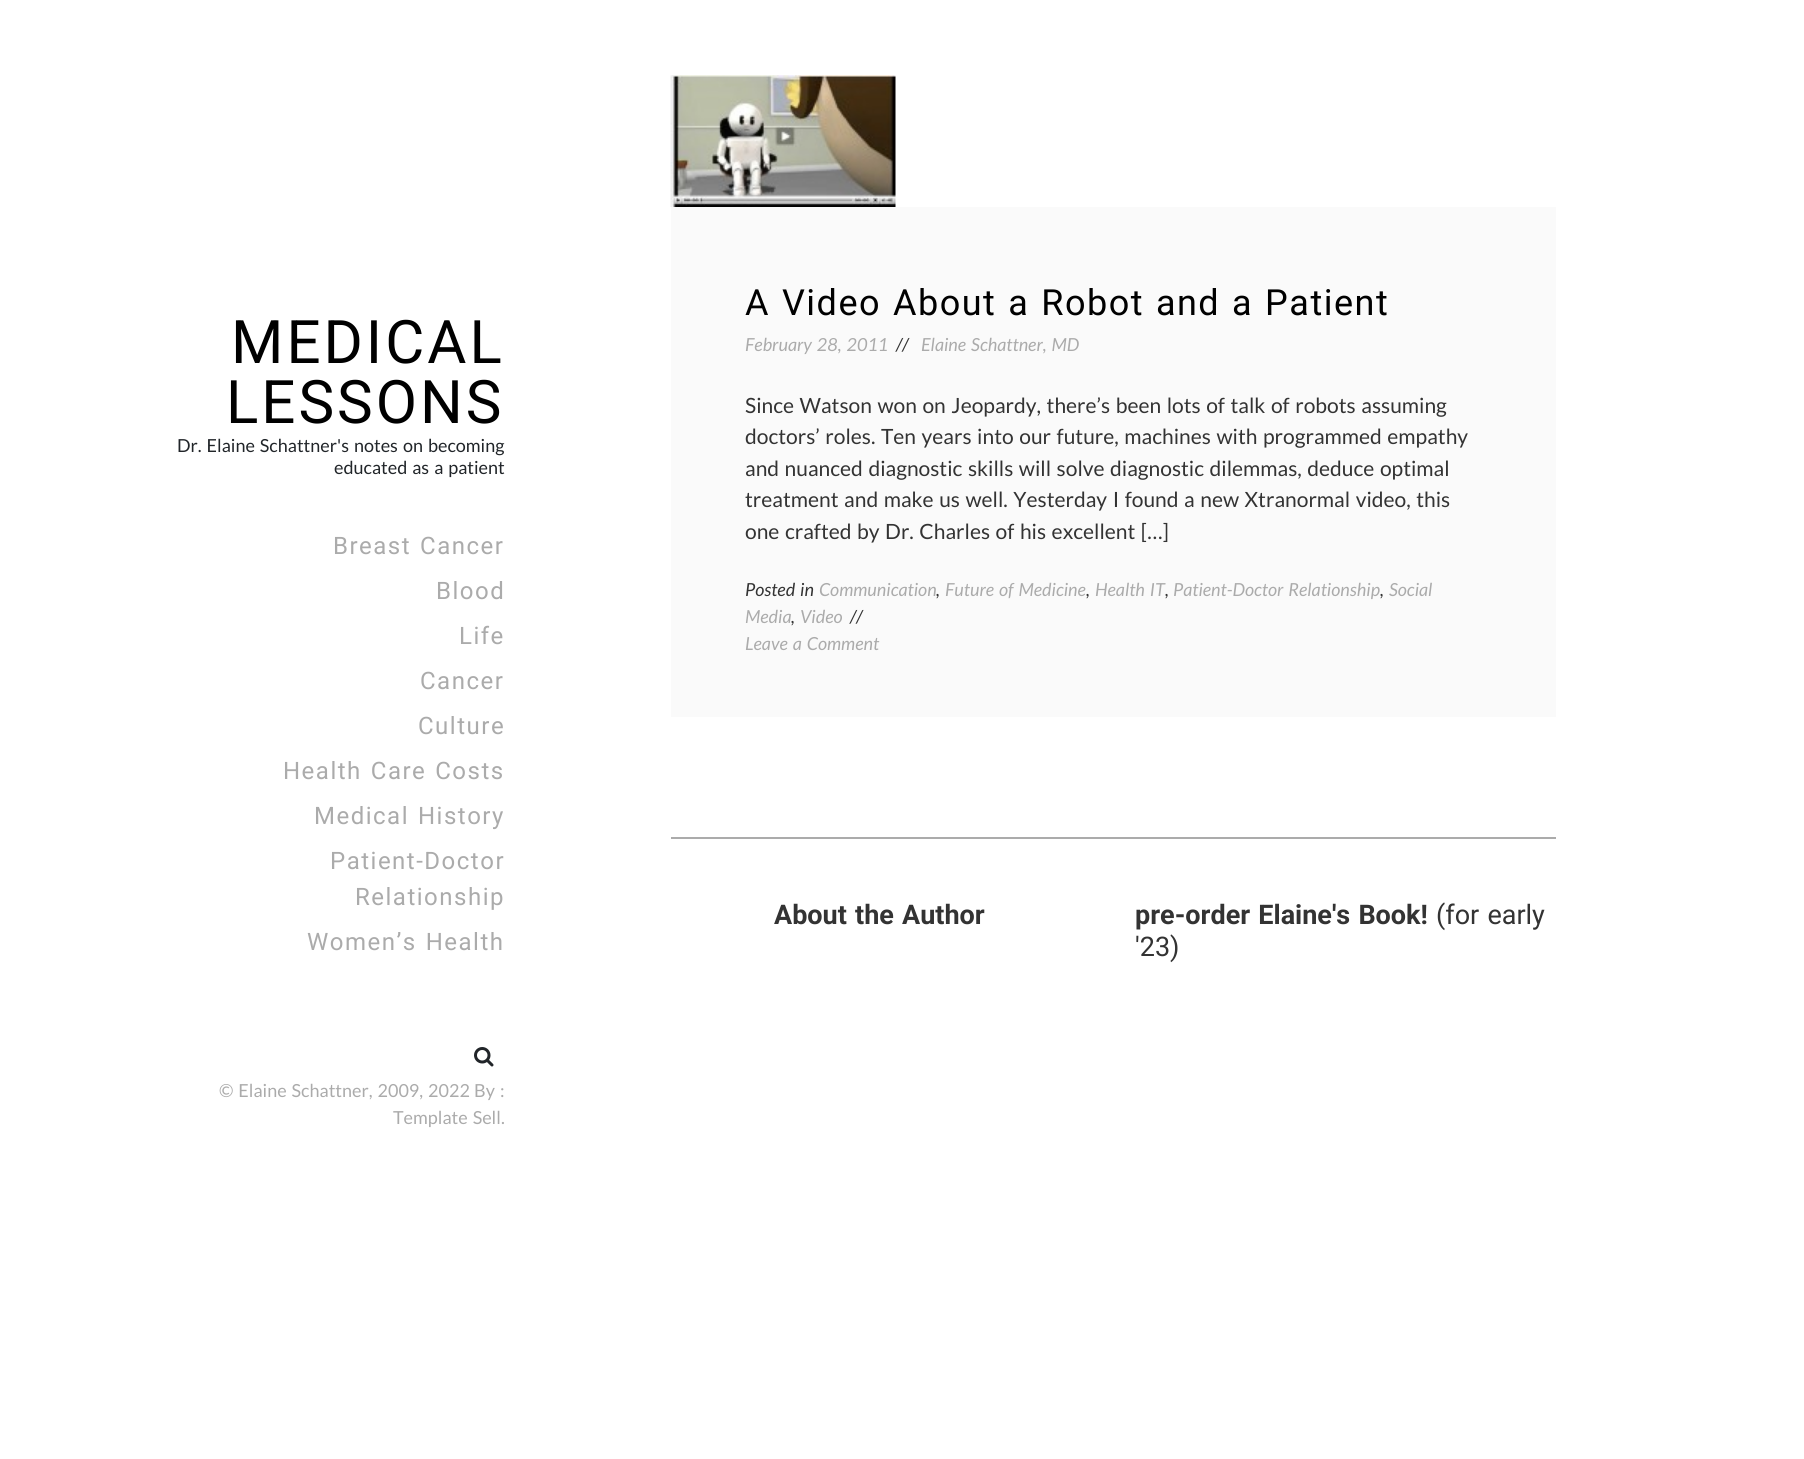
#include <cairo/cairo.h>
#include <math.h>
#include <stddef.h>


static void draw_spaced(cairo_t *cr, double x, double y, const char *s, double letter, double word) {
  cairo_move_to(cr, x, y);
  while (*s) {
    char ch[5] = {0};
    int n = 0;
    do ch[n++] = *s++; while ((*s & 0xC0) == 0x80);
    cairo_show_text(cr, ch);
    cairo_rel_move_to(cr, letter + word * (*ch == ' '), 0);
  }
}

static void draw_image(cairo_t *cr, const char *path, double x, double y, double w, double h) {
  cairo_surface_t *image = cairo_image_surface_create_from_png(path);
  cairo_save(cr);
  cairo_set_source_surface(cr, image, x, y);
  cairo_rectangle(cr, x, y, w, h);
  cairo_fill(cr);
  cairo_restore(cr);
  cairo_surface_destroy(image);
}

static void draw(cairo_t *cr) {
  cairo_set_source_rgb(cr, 1, 1, 1);
  cairo_paint(cr);
  draw_image(cr, "images/1.png", 474, 1047, 20, 20);
  draw_image(cr, "images/2.png", 670, 75, 226, 132);
  cairo_set_source_rgb(cr, 250 / 255.0, 250 / 255.0, 250 / 255.0);
  cairo_rectangle(cr, 671, 207, 885, 510);
  cairo_fill(cr);
  cairo_set_source_rgb(cr, 171 / 255.0, 171 / 255.0, 171 / 255.0);
  cairo_rectangle(cr, 671, 837, 885, 2);
  cairo_fill(cr);
  cairo_select_font_face(cr, "Roboto", CAIRO_FONT_SLANT_NORMAL, CAIRO_FONT_WEIGHT_NORMAL);
  cairo_set_font_size(cr, 60);
  cairo_set_source_rgb(cr, 0, 0, 0);
  draw_spaced(cr, 231, 363, "MEDICAL", 3, 0);
  draw_spaced(cr, 226, 423, "LESSONS", 3, 0);
  cairo_select_font_face(cr, "Lato", CAIRO_FONT_SLANT_NORMAL, CAIRO_FONT_WEIGHT_NORMAL);
  cairo_set_font_size(cr, 18);
  cairo_set_source_rgb(cr, 33 / 255.0, 37 / 255.0, 41 / 255.0);
  draw_spaced(cr, 177, 452, "Dr. Elaine Schattner's notes on becoming", 0, 1.5);
  draw_spaced(cr, 334, 474, "educated as a patient", 0, 1.5);
  cairo_select_font_face(cr, "Roboto", CAIRO_FONT_SLANT_NORMAL, CAIRO_FONT_WEIGHT_NORMAL);
  cairo_set_font_size(cr, 24);
  cairo_set_source_rgb(cr, 171 / 255.0, 171 / 255.0, 171 / 255.0);
  draw_spaced(cr, 333, 554, "Breast Cancer", 1.5, 1.5);
  draw_spaced(cr, 436, 599, "Blood", 1.5, 0);
  draw_spaced(cr, 459, 644, "Life", 1.5, 0);
  draw_spaced(cr, 420, 689, "Cancer", 1.5, 0);
  draw_spaced(cr, 418, 734, "Culture", 1.5, 0);
  draw_spaced(cr, 283, 779, "Health Care Costs", 1.5, 1.5);
  draw_spaced(cr, 314, 824, "Medical History", 1.5, 1.5);
  draw_spaced(cr, 330, 869, "Patient-Doctor", 1.5, 0);
  draw_spaced(cr, 355, 905, "Relationship", 1.5, 0);
  draw_spaced(cr, 307, 950, "Women’s Health", 1.5, 1.5);
  cairo_select_font_face(cr, "Lato", CAIRO_FONT_SLANT_NORMAL, CAIRO_FONT_WEIGHT_NORMAL);
  cairo_set_font_size(cr, 18);
  draw_spaced(cr, 219, 1097, "© Elaine Schattner, 2009, 2022", 0, 1.5);
  cairo_move_to(cr, 474, 1097);
  cairo_show_text(cr, "By");
  cairo_move_to(cr, 500, 1097);
  cairo_show_text(cr, ":");
  draw_spaced(cr, 393, 1124, "Template Sell", 0, 1.5);
  cairo_move_to(cr, 501, 1124);
  cairo_show_text(cr, ".");
  cairo_select_font_face(cr, "Roboto", CAIRO_FONT_SLANT_NORMAL, CAIRO_FONT_WEIGHT_NORMAL);
  cairo_set_font_size(cr, 36);
  cairo_set_source_rgb(cr, 0, 0, 0);
  draw_spaced(cr, 745, 315, "A Video About a Robot and a Patient", 1.5, 1.5);
  cairo_select_font_face(cr, "Lato", CAIRO_FONT_SLANT_ITALIC, CAIRO_FONT_WEIGHT_NORMAL);
  cairo_set_font_size(cr, 18);
  cairo_set_source_rgb(cr, 171 / 255.0, 171 / 255.0, 171 / 255.0);
  draw_spaced(cr, 745, 351, "February 28, 2011", 0, 1.5);
  cairo_set_source_rgb(cr, 51 / 255.0, 51 / 255.0, 51 / 255.0);
  cairo_move_to(cr, 896, 351);
  cairo_show_text(cr, "//");
  cairo_set_source_rgb(cr, 171 / 255.0, 171 / 255.0, 171 / 255.0);
  draw_spaced(cr, 921, 351, "Elaine Schattner, MD", 0, 1.5);
  cairo_select_font_face(cr, "Lato", CAIRO_FONT_SLANT_NORMAL, CAIRO_FONT_WEIGHT_NORMAL);
  cairo_set_font_size(cr, 21);
  cairo_set_source_rgb(cr, 51 / 255.0, 51 / 255.0, 51 / 255.0);
  draw_spaced(cr, 745, 413, "Since Watson won on Jeopardy, there’s been lots of talk of robots assuming", 0, 1.5);
  draw_spaced(cr, 745, 444, "doctors’ roles. Ten years into our future, machines with programmed empathy", 0, 1.5);
  draw_spaced(cr, 745, 476, "and nuanced diagnostic skills will solve diagnostic dilemmas, deduce optimal", 0, 1.5);
  draw_spaced(cr, 745, 507, "treatment and make us well. Yesterday I found a new Xtranormal video, this", 0, 1.5);
  draw_spaced(cr, 745, 539, "one crafted by Dr. Charles of his excellent […]", 0, 1.5);
  cairo_select_font_face(cr, "Lato", CAIRO_FONT_SLANT_ITALIC, CAIRO_FONT_WEIGHT_NORMAL);
  cairo_set_font_size(cr, 18);
  draw_spaced(cr, 745, 596, "Posted in", 0, 1.5);
  cairo_set_source_rgb(cr, 171 / 255.0, 171 / 255.0, 171 / 255.0);
  cairo_move_to(cr, 819, 596);
  cairo_show_text(cr, "Communication");
  cairo_set_source_rgb(cr, 51 / 255.0, 51 / 255.0, 51 / 255.0);
  cairo_move_to(cr, 936, 596);
  cairo_show_text(cr, ",");
  cairo_set_source_rgb(cr, 171 / 255.0, 171 / 255.0, 171 / 255.0);
  draw_spaced(cr, 945, 596, "Future of Medicine", 0, 1.5);
  cairo_set_source_rgb(cr, 51 / 255.0, 51 / 255.0, 51 / 255.0);
  cairo_move_to(cr, 1086, 596);
  cairo_show_text(cr, ",");
  cairo_set_source_rgb(cr, 171 / 255.0, 171 / 255.0, 171 / 255.0);
  draw_spaced(cr, 1095, 596, "Health IT", 0, 1.5);
  cairo_set_source_rgb(cr, 51 / 255.0, 51 / 255.0, 51 / 255.0);
  cairo_move_to(cr, 1165, 596);
  cairo_show_text(cr, ",");
  cairo_set_source_rgb(cr, 171 / 255.0, 171 / 255.0, 171 / 255.0);
  draw_spaced(cr, 1173, 596, "Patient-Doctor Relationship", 0, 1.5);
  cairo_set_source_rgb(cr, 51 / 255.0, 51 / 255.0, 51 / 255.0);
  cairo_move_to(cr, 1380, 596);
  cairo_show_text(cr, ",");
  cairo_set_source_rgb(cr, 171 / 255.0, 171 / 255.0, 171 / 255.0);
  cairo_move_to(cr, 1389, 596);
  cairo_show_text(cr, "Social");
  cairo_move_to(cr, 745, 623);
  cairo_show_text(cr, "Media");
  cairo_set_source_rgb(cr, 51 / 255.0, 51 / 255.0, 51 / 255.0);
  cairo_move_to(cr, 791, 623);
  cairo_show_text(cr, ",");
  cairo_set_source_rgb(cr, 171 / 255.0, 171 / 255.0, 171 / 255.0);
  cairo_move_to(cr, 800, 623);
  cairo_show_text(cr, "Video");
  cairo_set_source_rgb(cr, 51 / 255.0, 51 / 255.0, 51 / 255.0);
  cairo_move_to(cr, 850, 623);
  cairo_show_text(cr, "//");
  cairo_set_source_rgb(cr, 171 / 255.0, 171 / 255.0, 171 / 255.0);
  draw_spaced(cr, 745, 650, "Leave a Comment", 0, 1.5);
  cairo_select_font_face(cr, "Roboto", CAIRO_FONT_SLANT_NORMAL, CAIRO_FONT_WEIGHT_BOLD);
  cairo_set_font_size(cr, 27);
  cairo_set_source_rgb(cr, 51 / 255.0, 51 / 255.0, 51 / 255.0);
  draw_spaced(cr, 774, 924, "About the Author", 0, 1.5);
  draw_spaced(cr, 1135, 924, "pre-order Elaine's Book!", 0, 1.5);
  cairo_select_font_face(cr, "Roboto", CAIRO_FONT_SLANT_NORMAL, CAIRO_FONT_WEIGHT_NORMAL);
  draw_spaced(cr, 1436, 924, "(for early", 0, 1.5);
  cairo_move_to(cr, 1135, 956);
  cairo_show_text(cr, "'23)");
}

int main(void) {
  cairo_surface_t *surface = cairo_image_surface_create(CAIRO_FORMAT_RGB24, 1804, 1459);
  cairo_t *cr = cairo_create(surface);
  cairo_font_options_t *options = cairo_font_options_create();
  cairo_font_options_set_hint_metrics(options, CAIRO_HINT_METRICS_OFF);
  cairo_font_options_set_hint_style(options, CAIRO_HINT_STYLE_NONE);
  cairo_set_font_options(cr, options);
  cairo_set_miter_limit(cr, 4);
  draw(cr);
  cairo_surface_write_to_png(surface, "out.png");
  cairo_font_options_destroy(options);
  cairo_destroy(cr);
  cairo_surface_destroy(surface);
  return 0;
}
